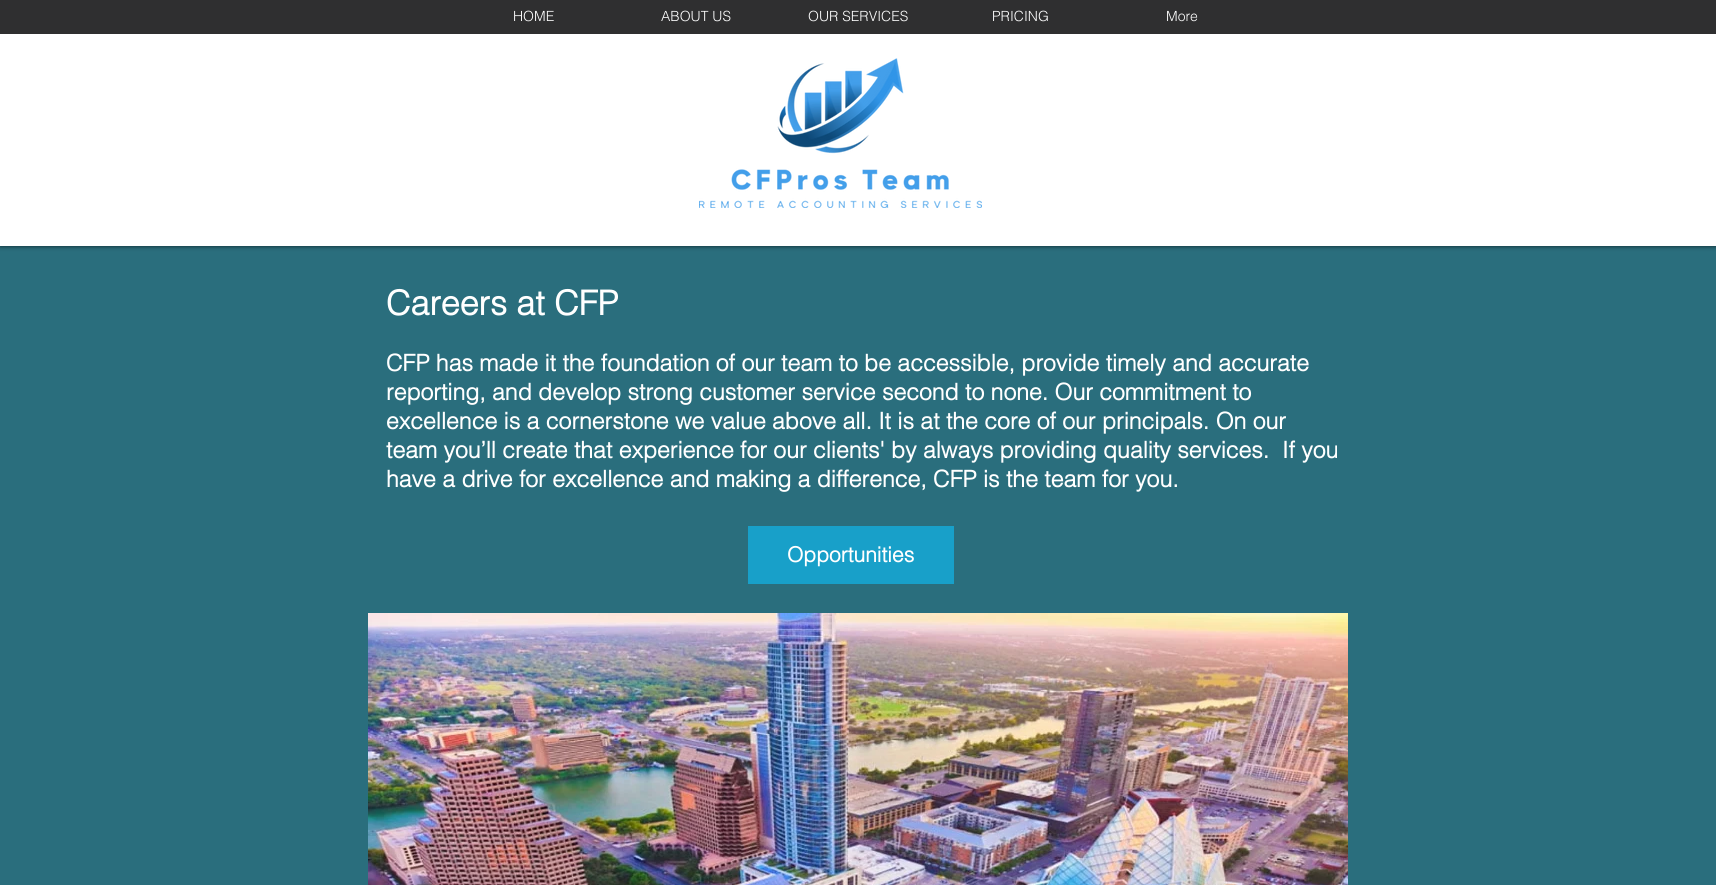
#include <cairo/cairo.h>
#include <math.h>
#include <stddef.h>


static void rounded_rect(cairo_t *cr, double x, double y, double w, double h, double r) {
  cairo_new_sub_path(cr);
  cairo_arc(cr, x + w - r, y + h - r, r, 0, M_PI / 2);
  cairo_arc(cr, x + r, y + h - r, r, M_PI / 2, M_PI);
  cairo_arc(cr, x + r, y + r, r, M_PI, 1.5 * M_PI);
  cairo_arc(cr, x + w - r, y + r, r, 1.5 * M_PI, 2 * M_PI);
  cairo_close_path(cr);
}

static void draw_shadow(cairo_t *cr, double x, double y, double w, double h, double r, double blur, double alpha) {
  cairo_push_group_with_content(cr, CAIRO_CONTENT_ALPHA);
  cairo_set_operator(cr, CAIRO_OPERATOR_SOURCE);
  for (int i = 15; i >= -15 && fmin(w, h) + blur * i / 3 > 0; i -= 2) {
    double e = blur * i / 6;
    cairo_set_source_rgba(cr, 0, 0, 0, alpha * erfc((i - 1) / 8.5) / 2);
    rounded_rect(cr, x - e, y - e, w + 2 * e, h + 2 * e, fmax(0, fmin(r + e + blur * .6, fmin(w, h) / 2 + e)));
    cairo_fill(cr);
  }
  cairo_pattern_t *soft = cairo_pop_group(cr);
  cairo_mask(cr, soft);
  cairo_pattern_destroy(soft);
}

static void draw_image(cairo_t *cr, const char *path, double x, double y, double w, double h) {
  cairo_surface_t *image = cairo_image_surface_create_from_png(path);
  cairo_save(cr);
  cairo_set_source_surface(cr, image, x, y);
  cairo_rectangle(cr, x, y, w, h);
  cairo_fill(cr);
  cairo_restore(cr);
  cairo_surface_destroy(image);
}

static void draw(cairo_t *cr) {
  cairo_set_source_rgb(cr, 42 / 255.0, 110 / 255.0, 125 / 255.0);
  cairo_paint(cr);
  cairo_set_source_rgb(cr, 0, 0, 0);
  draw_shadow(cr, 0, 0, 1716, 246, 0, 2.5, 0.7);
  cairo_set_source_rgb(cr, 1, 1, 1);
  cairo_rectangle(cr, 0, 34, 1716, 212);
  cairo_fill(cr);
  cairo_set_source_rgb(cr, 47 / 255.0, 47 / 255.0, 48 / 255.0);
  cairo_rectangle(cr, 0, 0, 1716, 34);
  cairo_fill(cr);
  draw_image(cr, "images/1.png", 699, 58, 283, 150);
  cairo_set_source_rgb(cr, 24 / 255.0, 160 / 255.0, 201 / 255.0);
  cairo_rectangle(cr, 748, 526, 206, 58);
  cairo_fill(cr);
  draw_image(cr, "images/2.png", 368, 613, 980, 272);
  cairo_select_font_face(cr, "helvetica Light", CAIRO_FONT_SLANT_NORMAL, CAIRO_FONT_WEIGHT_NORMAL);
  cairo_set_font_size(cr, 14);
  cairo_set_source_rgb(cr, 1, 1, 1);
  cairo_move_to(cr, 513, 21);
  cairo_show_text(cr, "HOME");
  cairo_move_to(cr, 661, 21);
  cairo_show_text(cr, "ABOUT US");
  cairo_move_to(cr, 808, 21);
  cairo_show_text(cr, "OUR SERVICES");
  cairo_move_to(cr, 992, 21);
  cairo_show_text(cr, "PRICING");
  cairo_move_to(cr, 1166, 21);
  cairo_show_text(cr, "More");
  cairo_select_font_face(cr, "helvetica", CAIRO_FONT_SLANT_NORMAL, CAIRO_FONT_WEIGHT_BOLD);
  cairo_set_font_size(cr, 34);
  cairo_move_to(cr, 386, 315);
  cairo_show_text(cr, "Careers at CFP");
  cairo_set_font_size(cr, 23);
  cairo_move_to(cr, 386, 371);
  cairo_show_text(cr, "CFP has made it the foundation of our team to be accessible, provide timely and accurate");
  cairo_move_to(cr, 386, 400);
  cairo_show_text(cr, "reporting, and develop strong customer service second to none. Our commitment to");
  cairo_move_to(cr, 386, 429);
  cairo_show_text(cr, "excellence is a cornerstone we value above all. It is at the core of our principals. On our");
  cairo_move_to(cr, 386, 458);
  cairo_show_text(cr, "team you’ll create that experience for our clients' by always providing quality services.  If you");
  cairo_move_to(cr, 386, 487);
  cairo_show_text(cr, "have a drive for excellence and making a difference, CFP is the team for you.");
  cairo_set_font_size(cr, 21);
  cairo_move_to(cr, 787, 562);
  cairo_show_text(cr, "Opportunities");
}

int main(void) {
  cairo_surface_t *surface = cairo_image_surface_create(CAIRO_FORMAT_RGB24, 1716, 885);
  cairo_t *cr = cairo_create(surface);
  cairo_font_options_t *options = cairo_font_options_create();
  cairo_font_options_set_hint_metrics(options, CAIRO_HINT_METRICS_OFF);
  cairo_font_options_set_hint_style(options, CAIRO_HINT_STYLE_NONE);
  cairo_set_font_options(cr, options);
  cairo_set_miter_limit(cr, 4);
  draw(cr);
  cairo_surface_write_to_png(surface, "out.png");
  cairo_font_options_destroy(options);
  cairo_destroy(cr);
  cairo_surface_destroy(surface);
  return 0;
}
